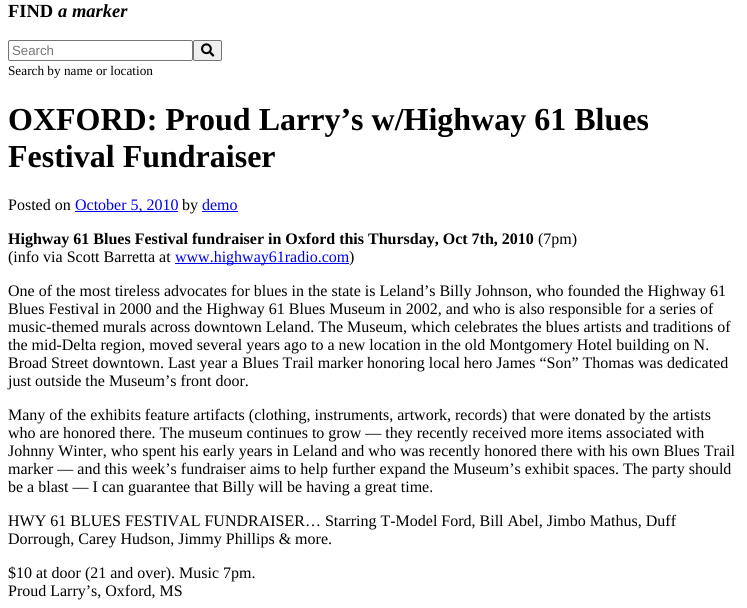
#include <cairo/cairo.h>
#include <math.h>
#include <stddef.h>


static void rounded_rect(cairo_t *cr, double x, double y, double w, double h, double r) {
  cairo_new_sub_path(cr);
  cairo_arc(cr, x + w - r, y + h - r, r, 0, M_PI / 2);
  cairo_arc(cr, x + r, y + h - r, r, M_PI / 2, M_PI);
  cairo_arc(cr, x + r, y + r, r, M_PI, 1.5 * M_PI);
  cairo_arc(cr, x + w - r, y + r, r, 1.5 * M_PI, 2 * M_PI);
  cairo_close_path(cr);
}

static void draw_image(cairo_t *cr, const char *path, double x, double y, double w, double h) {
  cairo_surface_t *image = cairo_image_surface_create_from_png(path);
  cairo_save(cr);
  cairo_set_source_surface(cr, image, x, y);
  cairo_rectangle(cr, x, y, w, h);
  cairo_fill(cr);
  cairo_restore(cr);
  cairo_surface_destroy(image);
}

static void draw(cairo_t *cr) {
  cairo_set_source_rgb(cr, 1, 1, 1);
  cairo_paint(cr);
  rounded_rect(cr, 8.5, 40.5, 184, 20, 1.5);
  cairo_set_source_rgb(cr, 118 / 255.0, 118 / 255.0, 118 / 255.0);
  cairo_set_line_width(cr, 1);
  cairo_stroke(cr);
  cairo_set_source_rgb(cr, 239 / 255.0, 239 / 255.0, 239 / 255.0);
  rounded_rect(cr, 193.5, 40.5, 28, 20, 1.5);
  cairo_fill_preserve(cr);
  cairo_set_source_rgb(cr, 118 / 255.0, 118 / 255.0, 118 / 255.0);
  cairo_stroke(cr);
  draw_image(cr, "images/1.png", 201, 43, 14, 14);
  cairo_set_source_rgb(cr, 0, 0, 238 / 255.0);
  cairo_rectangle(cr, 75, 211, 103, 1);
  cairo_fill(cr);
  cairo_rectangle(cr, 202, 211, 36, 1);
  cairo_fill(cr);
  cairo_rectangle(cr, 175, 263, 174, 1);
  cairo_fill(cr);
  cairo_select_font_face(cr, "Liberation Serif", CAIRO_FONT_SLANT_NORMAL, CAIRO_FONT_WEIGHT_BOLD);
  cairo_set_font_size(cr, 18.5);
  cairo_set_source_rgb(cr, 0, 0, 0);
  cairo_move_to(cr, 8, 17);
  cairo_show_text(cr, "FIND");
  cairo_select_font_face(cr, "Liberation Serif", CAIRO_FONT_SLANT_ITALIC, CAIRO_FONT_WEIGHT_BOLD);
  cairo_move_to(cr, 58, 17);
  cairo_show_text(cr, "a marker");
  cairo_select_font_face(cr, "Liberation Sans", CAIRO_FONT_SLANT_NORMAL, CAIRO_FONT_WEIGHT_NORMAL);
  cairo_set_font_size(cr, 13.25);
  cairo_set_source_rgb(cr, 117 / 255.0, 117 / 255.0, 117 / 255.0);
  cairo_move_to(cr, 12, 55);
  cairo_show_text(cr, "Search");
  cairo_select_font_face(cr, "Liberation Serif", CAIRO_FONT_SLANT_NORMAL, CAIRO_FONT_WEIGHT_NORMAL);
  cairo_set_source_rgb(cr, 0, 0, 0);
  cairo_move_to(cr, 8, 75);
  cairo_show_text(cr, "Search by name or location");
  cairo_select_font_face(cr, "Liberation Serif", CAIRO_FONT_SLANT_NORMAL, CAIRO_FONT_WEIGHT_BOLD);
  cairo_set_font_size(cr, 32);
  cairo_move_to(cr, 8, 130);
  cairo_show_text(cr, "OXFORD: Proud Larry’s w/Highway 61 Blues");
  cairo_move_to(cr, 8, 167);
  cairo_show_text(cr, "Festival Fundraiser");
  cairo_select_font_face(cr, "Liberation Serif", CAIRO_FONT_SLANT_NORMAL, CAIRO_FONT_WEIGHT_NORMAL);
  cairo_set_font_size(cr, 16);
  cairo_move_to(cr, 8, 210);
  cairo_show_text(cr, "Posted on");
  cairo_set_source_rgb(cr, 0, 0, 238 / 255.0);
  cairo_move_to(cr, 75, 210);
  cairo_show_text(cr, "October 5, 2010");
  cairo_set_source_rgb(cr, 0, 0, 0);
  cairo_move_to(cr, 182, 210);
  cairo_show_text(cr, "by");
  cairo_set_source_rgb(cr, 0, 0, 238 / 255.0);
  cairo_move_to(cr, 202, 210);
  cairo_show_text(cr, "demo");
  cairo_select_font_face(cr, "Liberation Serif", CAIRO_FONT_SLANT_NORMAL, CAIRO_FONT_WEIGHT_BOLD);
  cairo_set_source_rgb(cr, 0, 0, 0);
  cairo_move_to(cr, 8, 244);
  cairo_show_text(cr, "Highway 61 Blues Festival fundraiser in Oxford this Thursday, Oct 7th, 2010");
  cairo_select_font_face(cr, "Liberation Serif", CAIRO_FONT_SLANT_NORMAL, CAIRO_FONT_WEIGHT_NORMAL);
  cairo_move_to(cr, 538, 244);
  cairo_show_text(cr, "(7pm)");
  cairo_move_to(cr, 8, 262);
  cairo_show_text(cr, "(info via Scott Barretta at");
  cairo_set_source_rgb(cr, 0, 0, 238 / 255.0);
  cairo_move_to(cr, 175, 262);
  cairo_show_text(cr, "www.highway61radio.com");
  cairo_set_source_rgb(cr, 0, 0, 0);
  cairo_move_to(cr, 349, 262);
  cairo_show_text(cr, ")");
  cairo_move_to(cr, 8, 296);
  cairo_show_text(cr, "One of the most tireless advocates for blues in the state is Leland’s Billy Johnson, who founded the Highway 61");
  cairo_move_to(cr, 8, 314);
  cairo_show_text(cr, "Blues Festival in 2000 and the Highway 61 Blues Museum in 2002, and who is also responsible for a series of");
  cairo_move_to(cr, 8, 332);
  cairo_show_text(cr, "music-themed murals across downtown Leland. The Museum, which celebrates the blues artists and traditions of");
  cairo_move_to(cr, 8, 350);
  cairo_show_text(cr, "the mid-Delta region, moved several years ago to a new location in the old Montgomery Hotel building on N.");
  cairo_move_to(cr, 8, 368);
  cairo_show_text(cr, "Broad Street downtown. Last year a Blues Trail marker honoring local hero James “Son” Thomas was dedicated");
  cairo_move_to(cr, 8, 386);
  cairo_show_text(cr, "just outside the Museum’s front door.");
  cairo_move_to(cr, 8, 420);
  cairo_show_text(cr, "Many of the exhibits feature artifacts (clothing, instruments, artwork, records) that were donated by the artists");
  cairo_move_to(cr, 8, 438);
  cairo_show_text(cr, "who are honored there. The museum continues to grow — they recently received more items associated with");
  cairo_move_to(cr, 8, 456);
  cairo_show_text(cr, "Johnny Winter, who spent his early years in Leland and who was recently honored there with his own Blues Trail");
  cairo_move_to(cr, 8, 474);
  cairo_show_text(cr, "marker — and this week’s fundraiser aims to help further expand the Museum’s exhibit spaces. The party should");
  cairo_move_to(cr, 8, 492);
  cairo_show_text(cr, "be a blast — I can guarantee that Billy will be having a great time.");
  cairo_move_to(cr, 8, 526);
  cairo_show_text(cr, "HWY 61 BLUES FESTIVAL FUNDRAISER… Starring T-Model Ford, Bill Abel, Jimbo Mathus, Duff");
  cairo_move_to(cr, 8, 544);
  cairo_show_text(cr, "Dorrough, Carey Hudson, Jimmy Phillips & more.");
  cairo_move_to(cr, 8, 578);
  cairo_show_text(cr, "$10 at door (21 and over). Music 7pm.");
  cairo_move_to(cr, 8, 596);
  cairo_show_text(cr, "Proud Larry’s, Oxford, MS");
}

int main(void) {
  cairo_surface_t *surface = cairo_image_surface_create(CAIRO_FORMAT_RGB24, 747, 608);
  cairo_t *cr = cairo_create(surface);
  cairo_font_options_t *options = cairo_font_options_create();
  cairo_font_options_set_hint_metrics(options, CAIRO_HINT_METRICS_OFF);
  cairo_font_options_set_hint_style(options, CAIRO_HINT_STYLE_NONE);
  cairo_set_font_options(cr, options);
  cairo_set_miter_limit(cr, 4);
  draw(cr);
  cairo_surface_write_to_png(surface, "out.png");
  cairo_font_options_destroy(options);
  cairo_destroy(cr);
  cairo_surface_destroy(surface);
  return 0;
}
